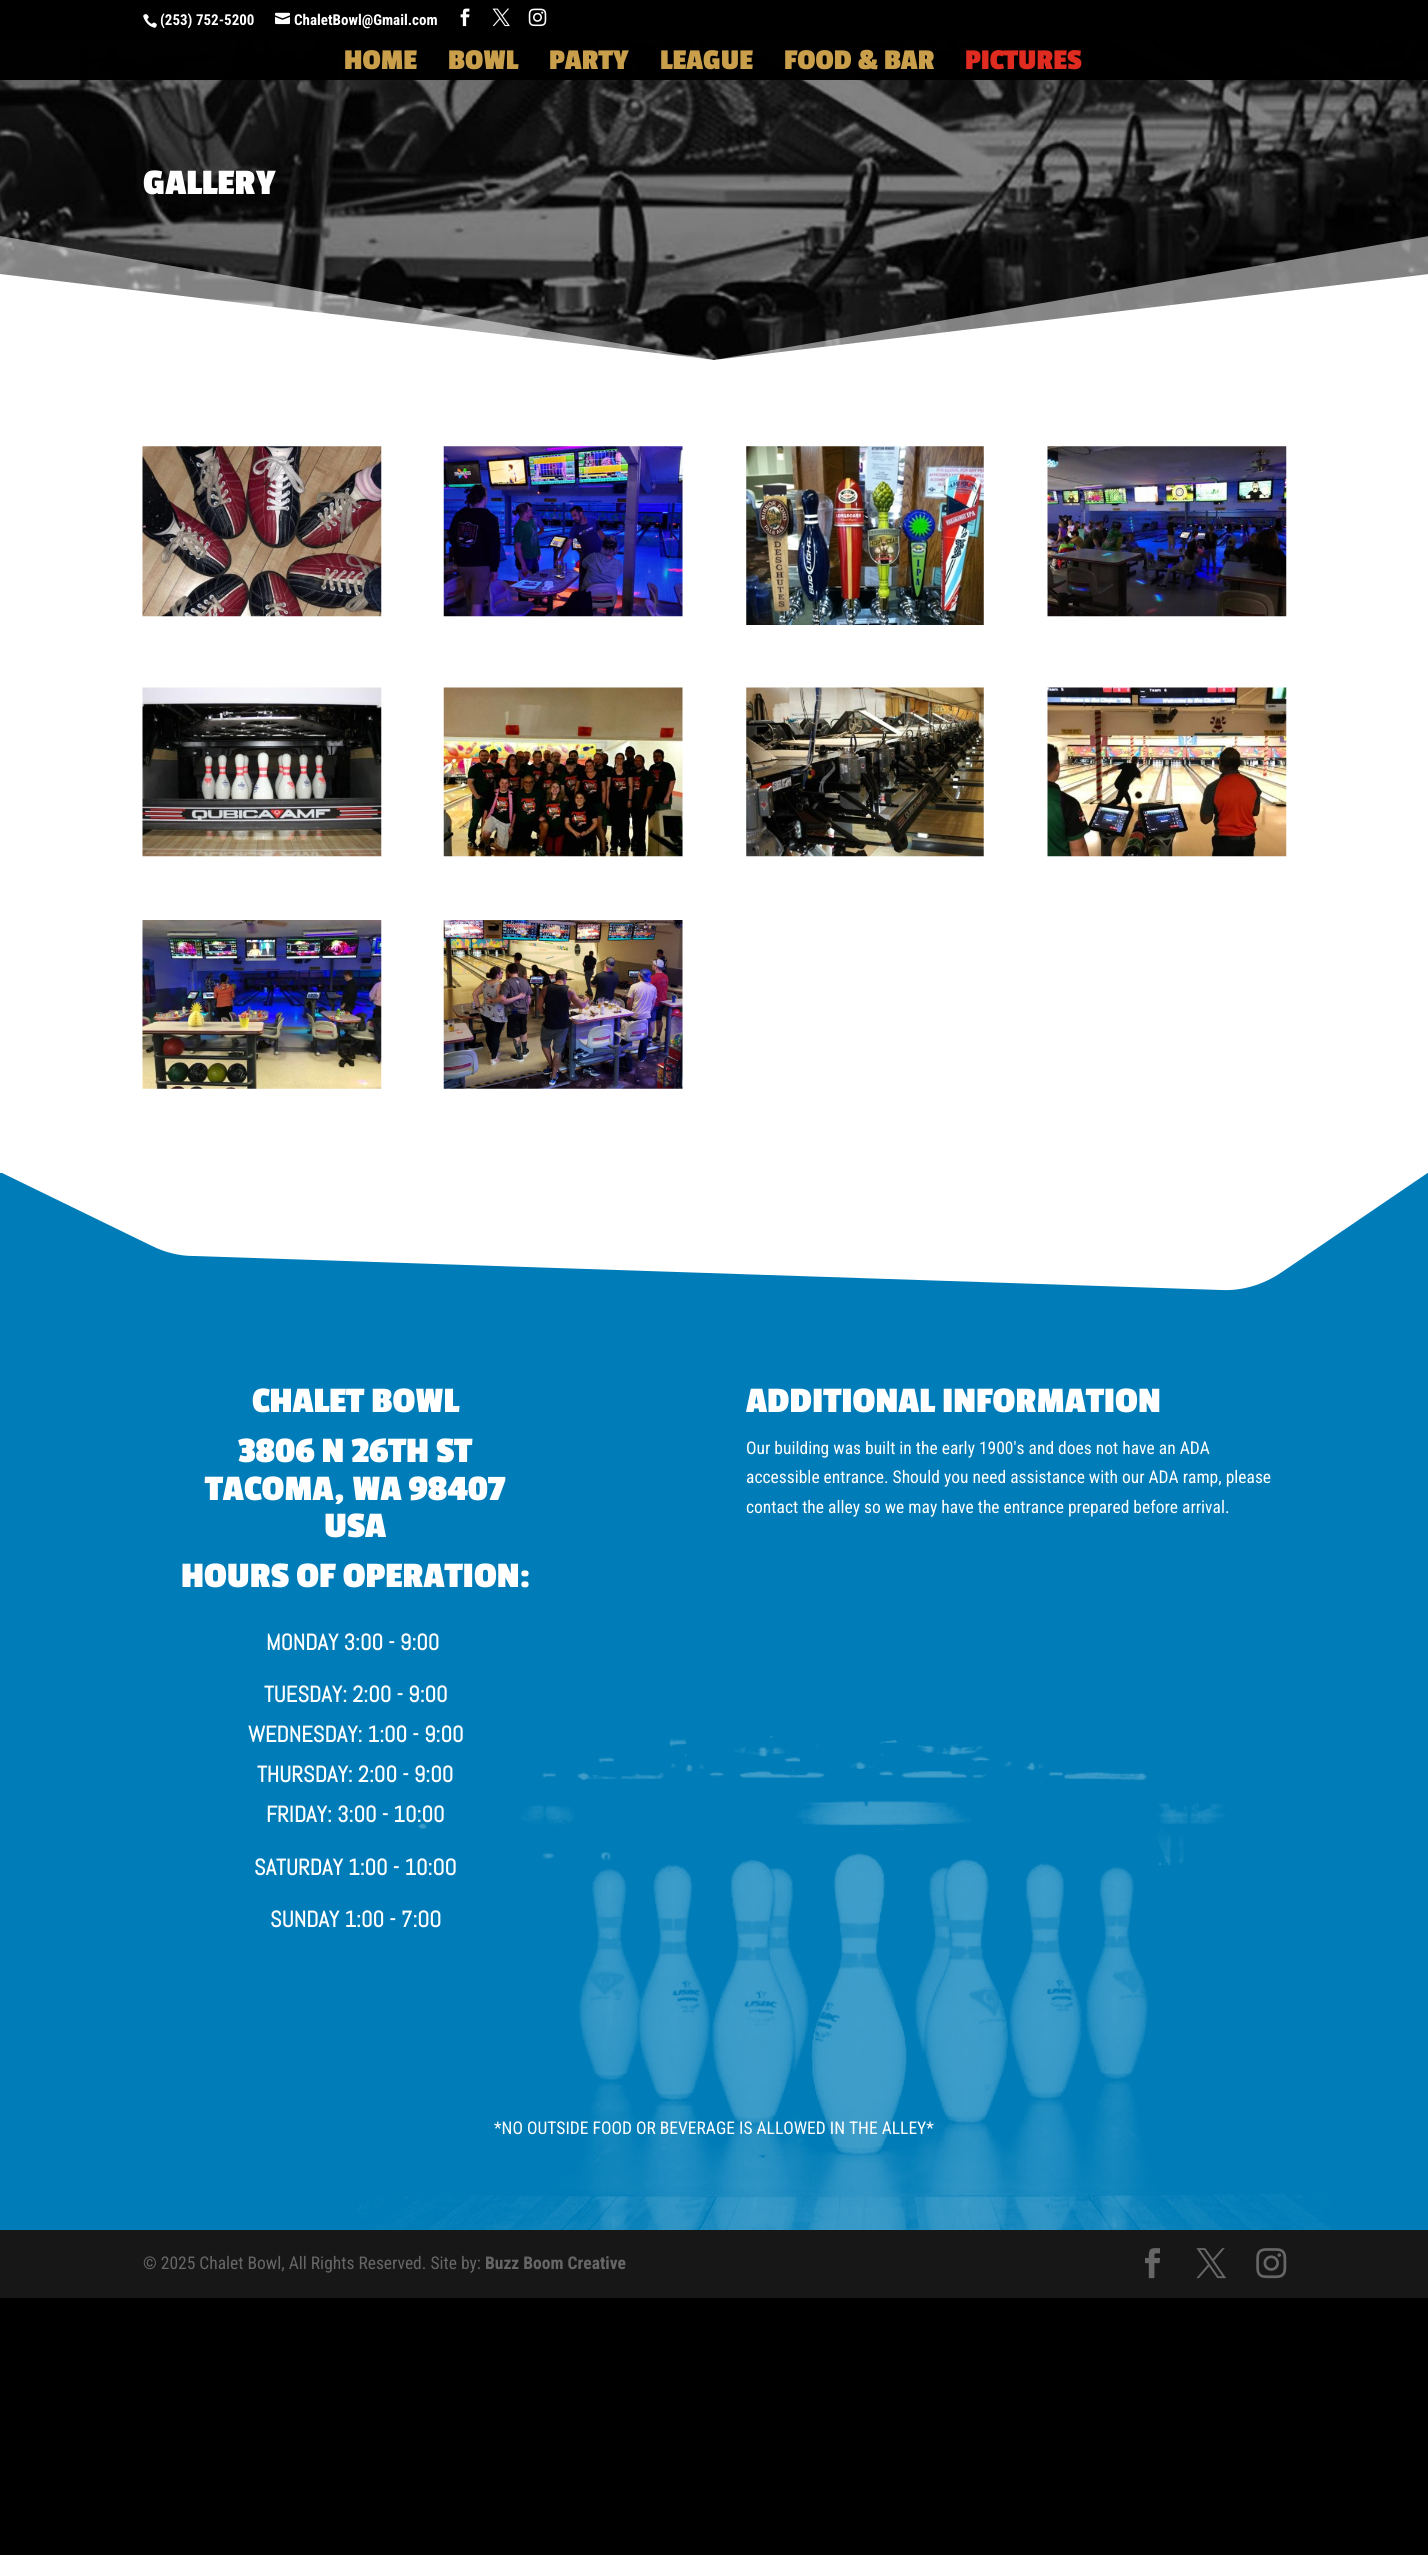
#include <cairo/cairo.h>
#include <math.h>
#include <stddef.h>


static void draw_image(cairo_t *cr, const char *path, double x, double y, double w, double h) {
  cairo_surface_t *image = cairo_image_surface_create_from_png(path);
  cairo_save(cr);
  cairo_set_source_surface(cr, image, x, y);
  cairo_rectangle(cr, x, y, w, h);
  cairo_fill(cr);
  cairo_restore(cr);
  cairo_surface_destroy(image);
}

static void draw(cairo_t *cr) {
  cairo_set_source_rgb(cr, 0, 0, 0);
  cairo_paint(cr);
  draw_image(cr, "images/1.png", 143, 14, 14, 14);
  draw_image(cr, "images/2.png", 275, 12, 15, 13);
  draw_image(cr, "images/3.png", 460, 8, 10, 19);
  draw_image(cr, "images/4.png", 492, 8, 18, 19);
  draw_image(cr, "images/5.png", 528, 8, 19, 19);
  draw_image(cr, "images/6.png", 0, 39, 1428, 321);
  cairo_set_source_rgba(cr, 0, 0, 0, 0.99);
  cairo_rectangle(cr, 0, 39, 1428, 41);
  cairo_fill(cr);
  cairo_set_source_rgba(cr, 1, 1, 1, 0.5);
  cairo_new_path(cr);
  cairo_move_to(cr, 714, 360);
  cairo_line_to(cr, 0, 236);
  cairo_line_to(cr, 0, 361);
  cairo_line_to(cr, 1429, 361);
  cairo_line_to(cr, 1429, 236);
  cairo_close_path(cr);
  cairo_fill(cr);
  cairo_set_source_rgb(cr, 1, 1, 1);
  cairo_new_path(cr);
  cairo_move_to(cr, 714, 360);
  cairo_line_to(cr, 0, 274);
  cairo_line_to(cr, 0, 361);
  cairo_line_to(cr, 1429, 361);
  cairo_line_to(cr, 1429, 274);
  cairo_close_path(cr);
  cairo_fill(cr);
  cairo_rectangle(cr, 0, 361, 1428, 930);
  cairo_fill(cr);
  draw_image(cr, "images/7.png", 142, 446, 240, 171);
  draw_image(cr, "images/8.png", 443, 446, 240, 171);
  draw_image(cr, "images/9.png", 746, 446, 238, 179);
  draw_image(cr, "images/10.png", 1047, 446, 240, 171);
  draw_image(cr, "images/11.png", 142, 687, 240, 170);
  draw_image(cr, "images/12.png", 443, 687, 240, 170);
  draw_image(cr, "images/13.png", 746, 687, 238, 170);
  draw_image(cr, "images/14.png", 1047, 687, 240, 170);
  draw_image(cr, "images/15.png", 142, 920, 240, 169);
  draw_image(cr, "images/16.png", 443, 920, 240, 169);
  cairo_save(cr);
  cairo_rectangle(cr, 0, 1173, 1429, 125);
  cairo_clip(cr);
  cairo_set_source_rgb(cr, 0, 125 / 255.0, 184 / 255.0);
  cairo_new_path(cr);
  cairo_move_to(cr, 1221, 1290);
  cairo_line_to(cr, 193, 1256);
  cairo_curve_to(cr, 179, 1256, 164, 1252, 152, 1246);
  cairo_line_to(cr, 0, 1172);
  cairo_line_to(cr, 0, 1298);
  cairo_line_to(cr, 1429, 1298);
  cairo_line_to(cr, 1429, 1172);
  cairo_line_to(cr, 1282, 1272);
  cairo_curve_to(cr, 1263, 1285, 1242, 1291, 1221, 1290);
  cairo_close_path(cr);
  cairo_fill(cr);
  cairo_restore(cr);
  cairo_set_source_rgb(cr, 0, 125 / 255.0, 184 / 255.0);
  cairo_rectangle(cr, 0, 1298, 1428, 932);
  cairo_fill(cr);
  draw_image(cr, "images/17.png", 358, 1736, 973, 494);
  cairo_set_source_rgb(cr, 23 / 255.0, 23 / 255.0, 23 / 255.0);
  cairo_rectangle(cr, 0, 2230, 1428, 68);
  cairo_fill(cr);
  draw_image(cr, "images/18.png", 1145, 2248, 15, 31);
  draw_image(cr, "images/19.png", 1196, 2248, 30, 31);
  draw_image(cr, "images/20.png", 1256, 2248, 31, 31);
  cairo_select_font_face(cr, "Roboto Condensed", CAIRO_FONT_SLANT_NORMAL, CAIRO_FONT_WEIGHT_BOLD);
  cairo_set_font_size(cr, 15);
  cairo_set_source_rgb(cr, 1, 1, 1);
  cairo_move_to(cr, 160, 25);
  cairo_show_text(cr, "(253) 752-5200");
  cairo_move_to(cr, 294, 25);
  cairo_show_text(cr, "ChaletBowl@Gmail.com");
  cairo_select_font_face(cr, "Passion One", CAIRO_FONT_SLANT_NORMAL, CAIRO_FONT_WEIGHT_BOLD);
  cairo_set_font_size(cr, 30);
  cairo_set_source_rgb(cr, 201 / 255.0, 159 / 255.0, 76 / 255.0);
  cairo_move_to(cr, 344, 69);
  cairo_show_text(cr, "HOME");
  cairo_move_to(cr, 448, 69);
  cairo_show_text(cr, "BOWL");
  cairo_move_to(cr, 549, 69);
  cairo_show_text(cr, "PARTY");
  cairo_move_to(cr, 660, 69);
  cairo_show_text(cr, "LEAGUE");
  cairo_move_to(cr, 784, 69);
  cairo_show_text(cr, "FOOD & BAR");
  cairo_set_source_rgb(cr, 224 / 255.0, 43 / 255.0, 32 / 255.0);
  cairo_move_to(cr, 965, 69);
  cairo_show_text(cr, "PICTURES");
  cairo_set_font_size(cr, 37.5);
  cairo_set_source_rgb(cr, 1, 1, 1);
  cairo_move_to(cr, 143, 194);
  cairo_show_text(cr, "GALLERY");
  cairo_move_to(cr, 252, 1412);
  cairo_show_text(cr, "CHALET BOWL");
  cairo_move_to(cr, 238, 1462);
  cairo_show_text(cr, "3806 N 26TH ST");
  cairo_move_to(cr, 205, 1500);
  cairo_show_text(cr, "TACOMA, WA 98407");
  cairo_move_to(cr, 324, 1537);
  cairo_show_text(cr, "USA");
  cairo_move_to(cr, 181, 1587);
  cairo_show_text(cr, "HOURS OF OPERATION:");
  cairo_select_font_face(cr, "Abel", CAIRO_FONT_SLANT_NORMAL, CAIRO_FONT_WEIGHT_BOLD);
  cairo_set_font_size(cr, 22.5);
  cairo_move_to(cr, 266, 1650);
  cairo_show_text(cr, "MONDAY 3:00 - 9:00");
  cairo_move_to(cr, 264, 1702);
  cairo_show_text(cr, "TUESDAY: 2:00 - 9:00");
  cairo_move_to(cr, 248, 1742);
  cairo_show_text(cr, "WEDNESDAY: 1:00 - 9:00");
  cairo_move_to(cr, 257, 1782);
  cairo_show_text(cr, "THURSDAY: 2:00 - 9:00");
  cairo_move_to(cr, 266, 1822);
  cairo_show_text(cr, "FRIDAY: 3:00 - 10:00");
  cairo_move_to(cr, 254, 1875);
  cairo_show_text(cr, "SATURDAY 1:00 - 10:OO");
  cairo_move_to(cr, 270, 1927);
  cairo_show_text(cr, "SUNDAY 1:00 - 7:OO");
  cairo_select_font_face(cr, "Passion One", CAIRO_FONT_SLANT_NORMAL, CAIRO_FONT_WEIGHT_BOLD);
  cairo_set_font_size(cr, 37.5);
  cairo_move_to(cr, 746, 1412);
  cairo_show_text(cr, "ADDITIONAL INFORMATION");
  cairo_select_font_face(cr, "Roboto Condensed", CAIRO_FONT_SLANT_NORMAL, CAIRO_FONT_WEIGHT_NORMAL);
  cairo_set_font_size(cr, 17.5);
  cairo_move_to(cr, 746, 1454);
  cairo_show_text(cr, "Our building was built in the early 1900's and does not have an ADA");
  cairo_move_to(cr, 746, 1483);
  cairo_show_text(cr, "accessible entrance. Should you need assistance with our ADA ramp, please");
  cairo_move_to(cr, 746, 1513);
  cairo_show_text(cr, "contact the alley so we may have the entrance prepared before arrival.");
  cairo_move_to(cr, 494, 2134);
  cairo_show_text(cr, "*NO OUTSIDE FOOD OR BEVERAGE IS ALLOWED IN THE ALLEY*");
  cairo_set_source_rgb(cr, 102 / 255.0, 102 / 255.0, 102 / 255.0);
  cairo_move_to(cr, 143, 2269);
  cairo_show_text(cr, "© 2025 Chalet Bowl, All Rights Reserved. Site by:");
  cairo_select_font_face(cr, "Roboto Condensed", CAIRO_FONT_SLANT_NORMAL, CAIRO_FONT_WEIGHT_BOLD);
  cairo_move_to(cr, 485, 2269);
  cairo_show_text(cr, "Buzz Boom Creative");
}

int main(void) {
  cairo_surface_t *surface = cairo_image_surface_create(CAIRO_FORMAT_RGB24, 1428, 2555);
  cairo_t *cr = cairo_create(surface);
  cairo_font_options_t *options = cairo_font_options_create();
  cairo_font_options_set_hint_metrics(options, CAIRO_HINT_METRICS_OFF);
  cairo_font_options_set_hint_style(options, CAIRO_HINT_STYLE_NONE);
  cairo_set_font_options(cr, options);
  cairo_set_miter_limit(cr, 4);
  draw(cr);
  cairo_surface_write_to_png(surface, "out.png");
  cairo_font_options_destroy(options);
  cairo_destroy(cr);
  cairo_surface_destroy(surface);
  return 0;
}
